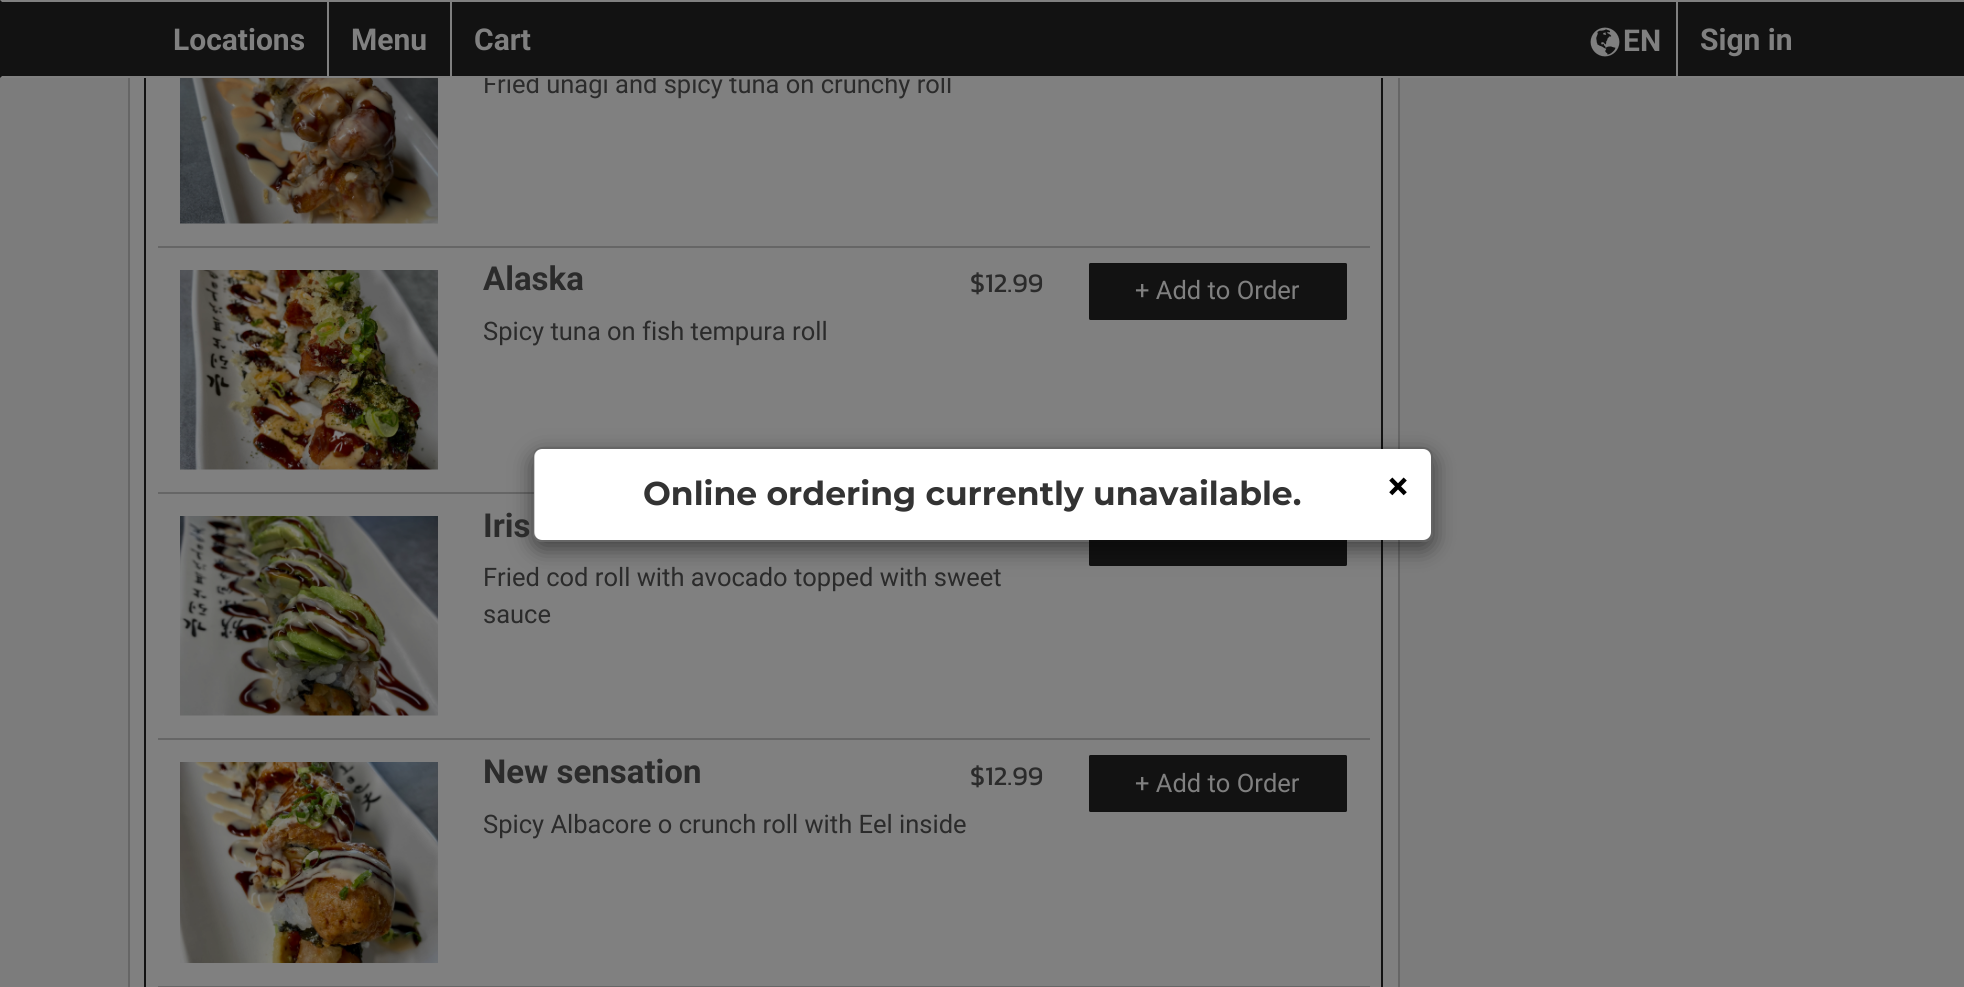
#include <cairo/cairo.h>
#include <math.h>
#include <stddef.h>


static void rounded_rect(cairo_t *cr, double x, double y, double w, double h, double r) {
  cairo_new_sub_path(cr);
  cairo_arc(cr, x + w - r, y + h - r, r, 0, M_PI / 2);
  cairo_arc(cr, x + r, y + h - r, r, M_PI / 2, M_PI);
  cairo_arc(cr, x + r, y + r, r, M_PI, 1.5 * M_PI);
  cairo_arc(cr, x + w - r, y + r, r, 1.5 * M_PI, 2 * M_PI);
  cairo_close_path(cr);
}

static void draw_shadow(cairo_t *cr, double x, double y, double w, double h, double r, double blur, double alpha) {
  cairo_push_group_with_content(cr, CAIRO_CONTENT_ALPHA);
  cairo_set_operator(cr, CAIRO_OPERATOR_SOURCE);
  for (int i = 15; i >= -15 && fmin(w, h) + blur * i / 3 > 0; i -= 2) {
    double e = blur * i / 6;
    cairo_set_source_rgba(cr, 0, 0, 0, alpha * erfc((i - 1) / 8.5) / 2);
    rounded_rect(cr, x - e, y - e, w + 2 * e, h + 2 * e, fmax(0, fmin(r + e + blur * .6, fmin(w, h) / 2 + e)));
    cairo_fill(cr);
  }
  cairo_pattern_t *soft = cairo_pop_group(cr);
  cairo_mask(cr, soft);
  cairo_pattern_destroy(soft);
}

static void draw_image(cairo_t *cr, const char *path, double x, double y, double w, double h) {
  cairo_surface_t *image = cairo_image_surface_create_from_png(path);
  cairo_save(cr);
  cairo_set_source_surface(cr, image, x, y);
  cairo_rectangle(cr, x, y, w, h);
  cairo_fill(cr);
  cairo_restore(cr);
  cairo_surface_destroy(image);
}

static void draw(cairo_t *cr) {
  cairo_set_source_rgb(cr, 124 / 255.0, 124 / 255.0, 124 / 255.0);
  cairo_paint(cr);
  cairo_set_source_rgb(cr, 128 / 255.0, 128 / 255.0, 128 / 255.0);
  cairo_rectangle(cr, 130, 78, 1268, 909);
  cairo_fill(cr);
  cairo_rectangle(cr, 129, -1, 1270, 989);
  cairo_set_source_rgb(cr, 102 / 255.0, 102 / 255.0, 102 / 255.0);
  cairo_stroke(cr);
  cairo_rectangle(cr, 145, -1, 1237, 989);
  cairo_set_source_rgb(cr, 18 / 255.0, 18 / 255.0, 18 / 255.0);
  cairo_stroke(cr);
  cairo_set_source_rgb(cr, 102 / 255.0, 102 / 255.0, 102 / 255.0);
  cairo_rectangle(cr, 158, 246, 1212, 2);
  cairo_fill(cr);
  draw_image(cr, "images/2.png", 180, 78, 258, 146);
  cairo_rectangle(cr, 158, 492, 376, 2);
  cairo_fill(cr);
  draw_image(cr, "images/3.png", 180, 270, 258, 200);
  cairo_set_source_rgb(cr, 18 / 255.0, 18 / 255.0, 18 / 255.0);
  rounded_rect(cr, 1089, 263, 258, 57, 1.5);
  cairo_fill(cr);
  cairo_set_source_rgba(cr, 0, 0, 0, 0.07);
  cairo_new_path(cr);
  cairo_move_to(cr, 1090, 264);
  cairo_line_to(cr, 1346, 264);
  cairo_line_to(cr, 1347, 266);
  cairo_line_to(cr, 1347, 264);
  cairo_curve_to(cr, 1347, 264, 1346, 263, 1346, 263);
  cairo_line_to(cr, 1090, 263);
  cairo_curve_to(cr, 1090, 263, 1089, 264, 1089, 264);
  cairo_line_to(cr, 1089, 266);
  cairo_close_path(cr);
  cairo_fill(cr);
  cairo_set_source_rgb(cr, 102 / 255.0, 102 / 255.0, 102 / 255.0);
  cairo_rectangle(cr, 158, 738, 1212, 2);
  cairo_fill(cr);
  draw_image(cr, "images/4.png", 180, 516, 258, 200);
  cairo_set_source_rgb(cr, 18 / 255.0, 18 / 255.0, 18 / 255.0);
  rounded_rect(cr, 1089, 509, 258, 57, 1.5);
  cairo_fill(cr);
  cairo_set_source_rgb(cr, 102 / 255.0, 102 / 255.0, 102 / 255.0);
  cairo_rectangle(cr, 158, 986, 1212, 1);
  cairo_fill(cr);
  draw_image(cr, "images/5.png", 180, 762, 258, 201);
  cairo_set_source_rgb(cr, 18 / 255.0, 18 / 255.0, 18 / 255.0);
  rounded_rect(cr, 1089, 755, 258, 57, 1.5);
  cairo_fill(cr);
  cairo_set_source_rgba(cr, 0, 0, 0, 0.07);
  cairo_new_path(cr);
  cairo_move_to(cr, 1090, 756);
  cairo_line_to(cr, 1346, 756);
  cairo_line_to(cr, 1347, 758);
  cairo_line_to(cr, 1347, 756);
  cairo_curve_to(cr, 1347, 756, 1346, 755, 1346, 755);
  cairo_line_to(cr, 1090, 755);
  cairo_curve_to(cr, 1090, 755, 1089, 756, 1089, 756);
  cairo_line_to(cr, 1089, 758);
  cairo_close_path(cr);
  cairo_fill(cr);
  cairo_save(cr);
  cairo_set_fill_rule(cr, CAIRO_FILL_RULE_EVEN_ODD);
  cairo_new_path(cr);
  cairo_move_to(cr, 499, 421);
  cairo_line_to(cr, 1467, 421);
  cairo_line_to(cr, 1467, 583);
  cairo_line_to(cr, 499, 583);
  cairo_close_path(cr);
  cairo_move_to(cr, 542, 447);
  cairo_line_to(cr, 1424, 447);
  cairo_curve_to(cr, 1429, 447, 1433, 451, 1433, 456);
  cairo_line_to(cr, 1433, 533);
  cairo_curve_to(cr, 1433, 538, 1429, 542, 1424, 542);
  cairo_line_to(cr, 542, 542);
  cairo_curve_to(cr, 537, 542, 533, 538, 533, 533);
  cairo_line_to(cr, 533, 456);
  cairo_curve_to(cr, 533, 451, 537, 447, 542, 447);
  cairo_close_path(cr);
  cairo_clip(cr);
  cairo_set_source_rgb(cr, 0, 0, 0);
  draw_shadow(cr, 533, 455, 900, 94, 9, 11, 0.5);
  cairo_restore(cr);
  cairo_set_source_rgb(cr, 1, 1, 1);
  rounded_rect(cr, 534, 449, 897, 91, 8);
  cairo_fill(cr);
  rounded_rect(cr, 534, 448, 898, 93, 8);
  cairo_set_source_rgba(cr, 0, 0, 0, 0.2);
  cairo_stroke(cr);
  cairo_select_font_face(cr, "Roboto", CAIRO_FONT_SLANT_NORMAL, CAIRO_FONT_WEIGHT_NORMAL);
  cairo_set_font_size(cr, 25.5);
  cairo_set_source_rgb(cr, 43 / 255.0, 43 / 255.0, 43 / 255.0);
  cairo_move_to(cr, 483, 93);
  cairo_show_text(cr, "Fried unagi and spicy tuna on crunchy roll");
  cairo_set_source_rgb(cr, 18 / 255.0, 18 / 255.0, 18 / 255.0);
  cairo_rectangle(cr, 0, 0, 1964, 78);
  cairo_fill(cr);
  cairo_select_font_face(cr, "Roboto", CAIRO_FONT_SLANT_NORMAL, CAIRO_FONT_WEIGHT_BOLD);
  cairo_set_font_size(cr, 30);
  cairo_set_source_rgb(cr, 128 / 255.0, 128 / 255.0, 128 / 255.0);
  cairo_move_to(cr, 474, 50);
  cairo_show_text(cr, "Cart");
  cairo_move_to(cr, 351, 50);
  cairo_show_text(cr, "Menu");
  cairo_new_path(cr);
  cairo_move_to(cr, 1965, 78);
  cairo_line_to(cr, 0, 78);
  cairo_line_to(cr, 2, 76);
  cairo_line_to(cr, 1964, 76);
  cairo_close_path(cr);
  cairo_fill(cr);
  cairo_rectangle(cr, 450, 2, 2, 75);
  cairo_fill(cr);
  cairo_move_to(cr, 173, 50);
  cairo_show_text(cr, "Locations");
  cairo_rectangle(cr, 327, 2, 2, 75);
  cairo_fill(cr);
  draw_image(cr, "images/1.png", 1590, 27, 30, 30);
  cairo_move_to(cr, 1623, 51);
  cairo_show_text(cr, "EN");
  cairo_move_to(cr, 1700, 50);
  cairo_show_text(cr, "Sign in");
  cairo_rectangle(cr, 1676, 2, 2, 75);
  cairo_fill(cr);
  cairo_new_path(cr);
  cairo_move_to(cr, 0, 0);
  cairo_line_to(cr, 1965, 0);
  cairo_line_to(cr, 1964, 2);
  cairo_line_to(cr, 2, 2);
  cairo_close_path(cr);
  cairo_fill(cr);
  cairo_set_font_size(cr, 33);
  cairo_set_source_rgb(cr, 43 / 255.0, 43 / 255.0, 43 / 255.0);
  cairo_move_to(cr, 483, 290);
  cairo_show_text(cr, "Alaska");
  cairo_select_font_face(cr, "Kanit", CAIRO_FONT_SLANT_NORMAL, CAIRO_FONT_WEIGHT_NORMAL);
  cairo_set_font_size(cr, 27);
  cairo_move_to(cr, 970, 292);
  cairo_show_text(cr, "$12.99");
  cairo_select_font_face(cr, "Roboto", CAIRO_FONT_SLANT_NORMAL, CAIRO_FONT_WEIGHT_NORMAL);
  cairo_set_font_size(cr, 25.5);
  cairo_move_to(cr, 483, 340);
  cairo_show_text(cr, "Spicy tuna on fish tempura roll");
  cairo_set_source_rgb(cr, 128 / 255.0, 128 / 255.0, 128 / 255.0);
  cairo_move_to(cr, 1135, 299);
  cairo_show_text(cr, "+ Add to Order");
  cairo_select_font_face(cr, "Roboto", CAIRO_FONT_SLANT_NORMAL, CAIRO_FONT_WEIGHT_BOLD);
  cairo_set_font_size(cr, 33);
  cairo_set_source_rgb(cr, 43 / 255.0, 43 / 255.0, 43 / 255.0);
  cairo_move_to(cr, 483, 537);
  cairo_show_text(cr, "Iris");
  cairo_select_font_face(cr, "Roboto", CAIRO_FONT_SLANT_NORMAL, CAIRO_FONT_WEIGHT_NORMAL);
  cairo_set_font_size(cr, 25.5);
  cairo_move_to(cr, 483, 586);
  cairo_show_text(cr, "Fried cod roll with avocado topped with sweet");
  cairo_move_to(cr, 483, 623);
  cairo_show_text(cr, "sauce");
  cairo_select_font_face(cr, "Roboto", CAIRO_FONT_SLANT_NORMAL, CAIRO_FONT_WEIGHT_BOLD);
  cairo_set_font_size(cr, 33);
  cairo_move_to(cr, 483, 783);
  cairo_show_text(cr, "New sensation");
  cairo_select_font_face(cr, "Kanit", CAIRO_FONT_SLANT_NORMAL, CAIRO_FONT_WEIGHT_NORMAL);
  cairo_set_font_size(cr, 27);
  cairo_move_to(cr, 970, 785);
  cairo_show_text(cr, "$12.99");
  cairo_select_font_face(cr, "Roboto", CAIRO_FONT_SLANT_NORMAL, CAIRO_FONT_WEIGHT_NORMAL);
  cairo_set_font_size(cr, 25.5);
  cairo_move_to(cr, 483, 833);
  cairo_show_text(cr, "Spicy Albacore o crunch roll with Eel inside");
  cairo_set_source_rgb(cr, 128 / 255.0, 128 / 255.0, 128 / 255.0);
  cairo_move_to(cr, 1135, 792);
  cairo_show_text(cr, "+ Add to Order");
  cairo_select_font_face(cr, "Montserrat", CAIRO_FONT_SLANT_NORMAL, CAIRO_FONT_WEIGHT_BOLD);
  cairo_set_font_size(cr, 33);
  cairo_set_source_rgb(cr, 51 / 255.0, 51 / 255.0, 51 / 255.0);
  cairo_move_to(cr, 643, 505);
  cairo_show_text(cr, "Online ordering currently unavailable.");
  cairo_select_font_face(cr, "Roboto", CAIRO_FONT_SLANT_NORMAL, CAIRO_FONT_WEIGHT_BOLD);
  cairo_set_font_size(cr, 38);
  cairo_set_source_rgb(cr, 0, 0, 0);
  cairo_move_to(cr, 1388, 499);
  cairo_show_text(cr, "×");
}

int main(void) {
  cairo_surface_t *surface = cairo_image_surface_create(CAIRO_FORMAT_RGB24, 1964, 987);
  cairo_t *cr = cairo_create(surface);
  cairo_font_options_t *options = cairo_font_options_create();
  cairo_font_options_set_hint_metrics(options, CAIRO_HINT_METRICS_OFF);
  cairo_font_options_set_hint_style(options, CAIRO_HINT_STYLE_NONE);
  cairo_set_font_options(cr, options);
  cairo_set_miter_limit(cr, 4);
  draw(cr);
  cairo_surface_write_to_png(surface, "out.png");
  cairo_font_options_destroy(options);
  cairo_destroy(cr);
  cairo_surface_destroy(surface);
  return 0;
}
